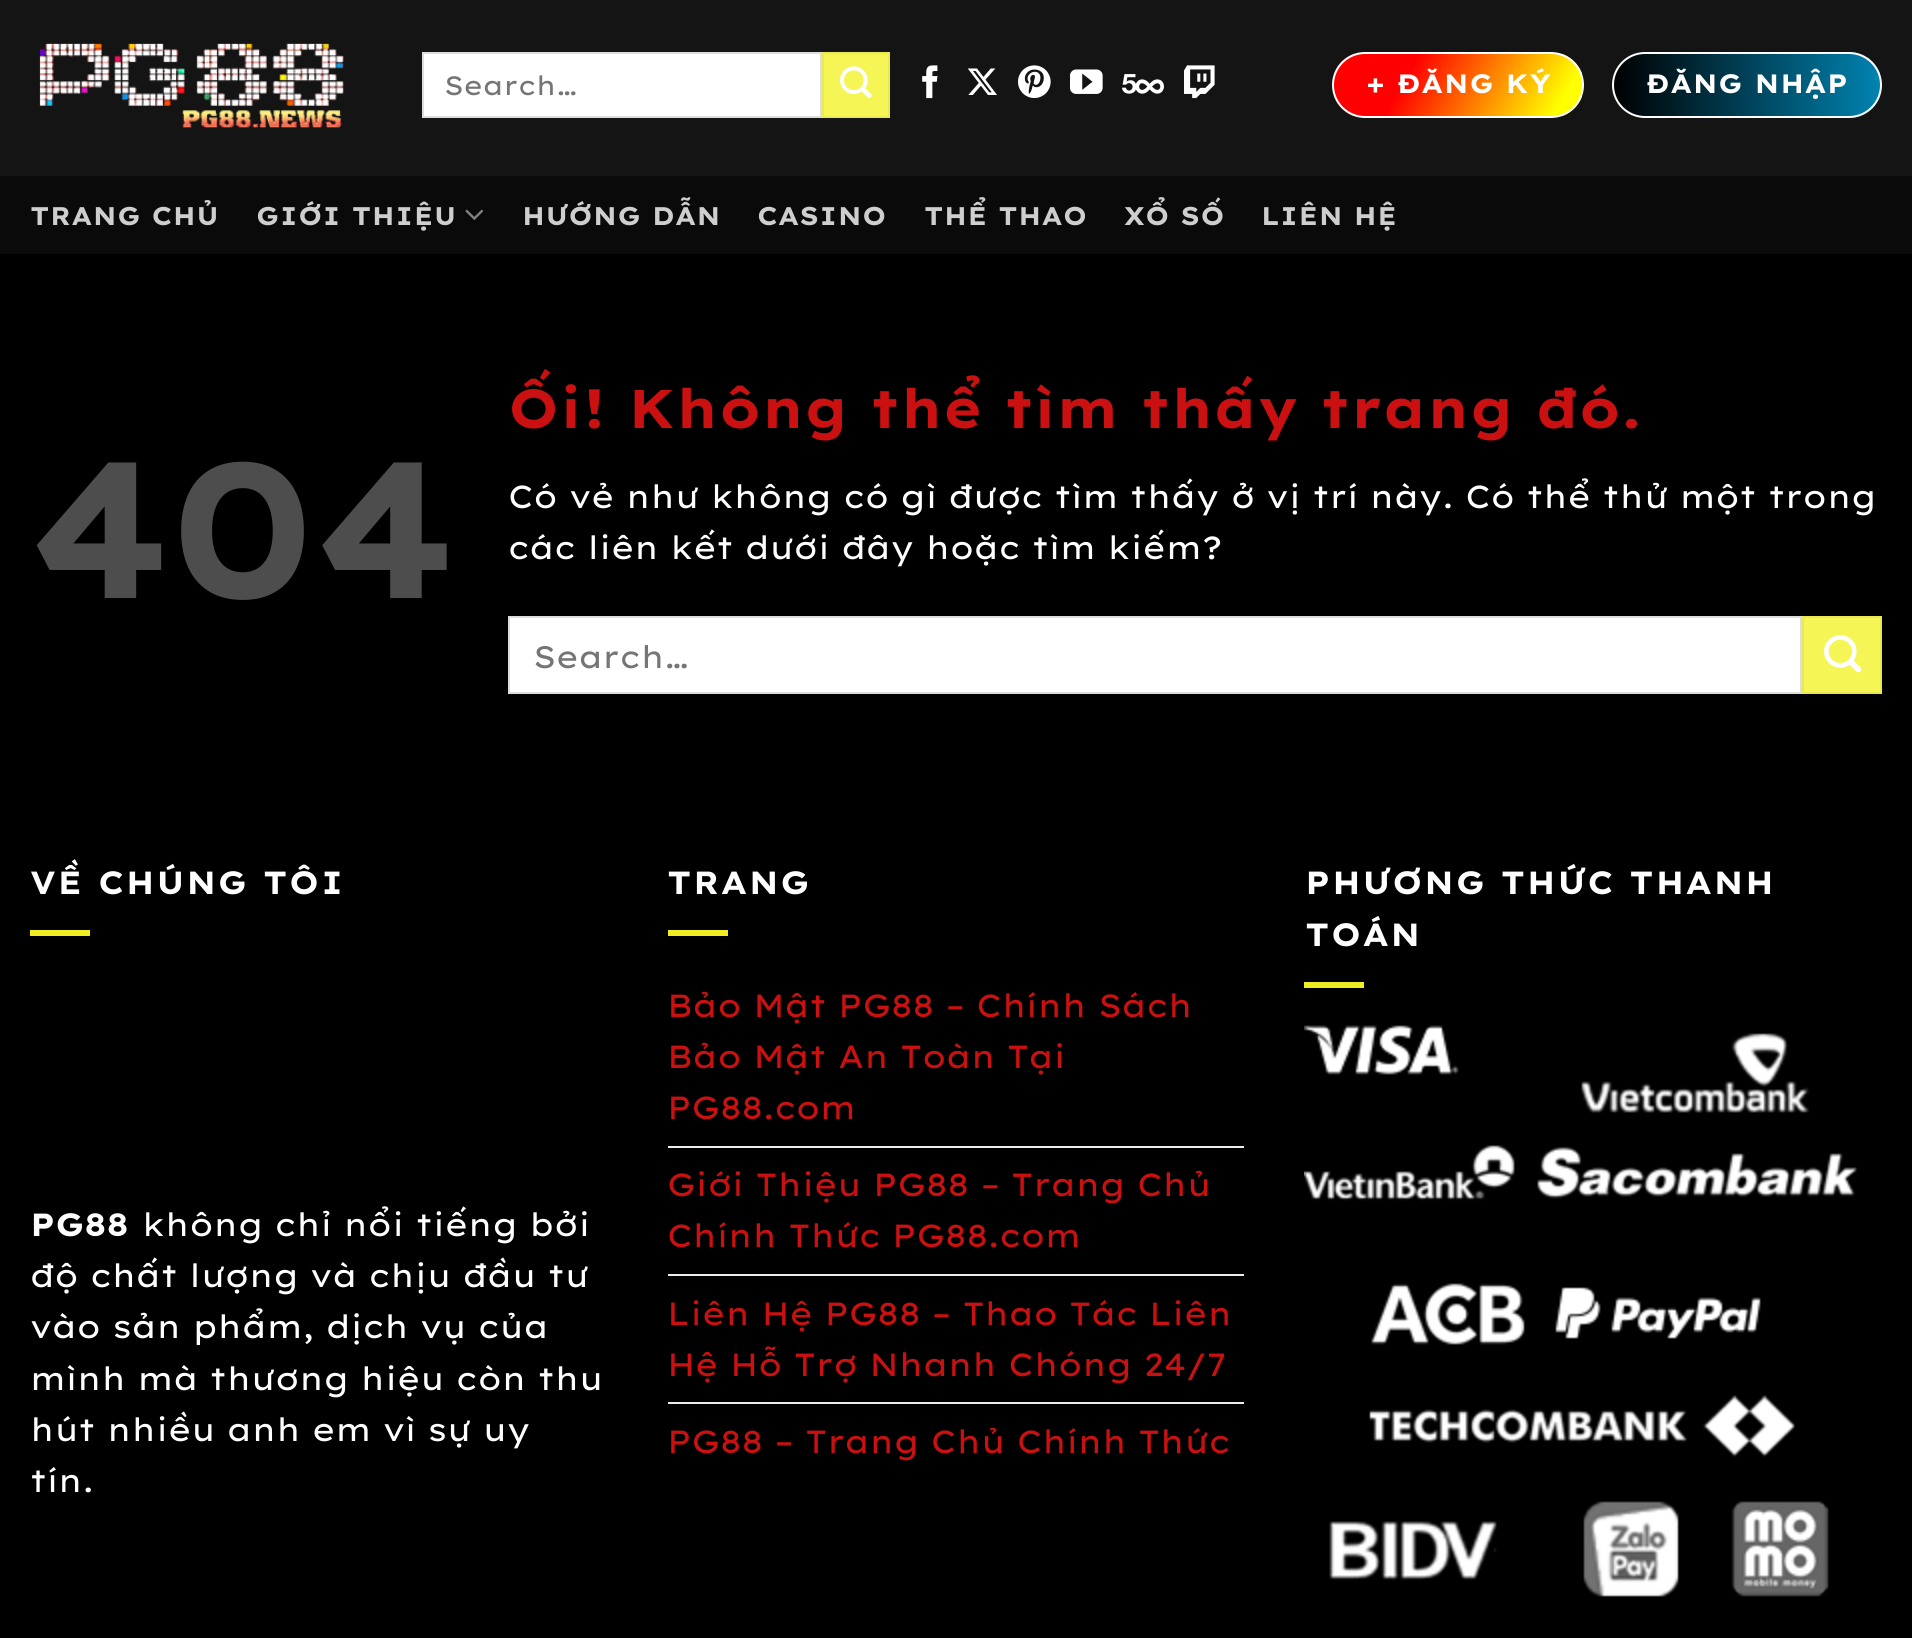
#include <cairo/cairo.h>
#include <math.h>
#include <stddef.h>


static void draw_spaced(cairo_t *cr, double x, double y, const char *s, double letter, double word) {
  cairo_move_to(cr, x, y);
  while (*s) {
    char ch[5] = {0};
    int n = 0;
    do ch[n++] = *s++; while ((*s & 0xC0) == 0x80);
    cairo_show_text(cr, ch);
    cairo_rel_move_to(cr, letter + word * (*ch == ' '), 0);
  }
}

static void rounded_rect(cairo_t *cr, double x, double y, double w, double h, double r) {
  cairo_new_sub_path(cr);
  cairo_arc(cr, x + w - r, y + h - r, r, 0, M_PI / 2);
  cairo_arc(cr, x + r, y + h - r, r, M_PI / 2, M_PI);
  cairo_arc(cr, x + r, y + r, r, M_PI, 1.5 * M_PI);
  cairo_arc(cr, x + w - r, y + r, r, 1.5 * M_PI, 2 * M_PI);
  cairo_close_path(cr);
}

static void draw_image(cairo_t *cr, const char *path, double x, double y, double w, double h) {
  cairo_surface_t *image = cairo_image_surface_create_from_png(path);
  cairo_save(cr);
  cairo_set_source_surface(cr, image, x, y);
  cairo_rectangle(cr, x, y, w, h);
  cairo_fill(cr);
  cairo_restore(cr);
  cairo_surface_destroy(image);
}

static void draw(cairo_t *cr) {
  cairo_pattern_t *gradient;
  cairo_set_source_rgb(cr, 0, 0, 0);
  cairo_paint(cr);
  cairo_set_source_rgb(cr, 20 / 255.0, 20 / 255.0, 20 / 255.0);
  cairo_rectangle(cr, 0, 0, 1912, 176);
  cairo_fill(cr);
  draw_image(cr, "images/1.png", 39, 43, 305, 85);
  cairo_set_source_rgb(cr, 1, 1, 1);
  cairo_rectangle(cr, 423, 53, 398, 64);
  cairo_fill_preserve(cr);
  cairo_set_source_rgb(cr, 221 / 255.0, 221 / 255.0, 221 / 255.0);
  cairo_stroke(cr);
  cairo_set_source_rgb(cr, 245 / 255.0, 245 / 255.0, 86 / 255.0);
  cairo_rectangle(cr, 823, 53, 66, 64);
  cairo_fill_preserve(cr);
  cairo_set_source_rgb(cr, 233 / 255.0, 233 / 255.0, 82 / 255.0);
  cairo_stroke(cr);
  draw_image(cr, "images/2.png", 840, 66, 32, 32);
  draw_image(cr, "images/3.png", 922, 65, 16, 34);
  draw_image(cr, "images/4.png", 967, 68, 30, 27);
  draw_image(cr, "images/5.png", 1018, 65, 33, 33);
  draw_image(cr, "images/6.png", 1070, 69, 33, 25);
  draw_image(cr, "images/7.png", 1122, 74, 42, 20);
  draw_image(cr, "images/8.png", 1184, 65, 31, 34);
  cairo_save(cr);
  rounded_rect(cr, 1332, 52, 252, 66, 33);
  cairo_clip(cr);
  gradient = cairo_pattern_create_linear(1352, 24, 1564, 146);
  cairo_pattern_add_color_stop_rgba(gradient, 0.3, 1, 0, 0, 1);
  cairo_pattern_add_color_stop_rgba(gradient, 0.9, 1, 1, 0, 1);
  cairo_set_source(cr, gradient);
  cairo_pattern_destroy(gradient);
  cairo_rectangle(cr, 1334, 54, 248, 62);
  cairo_fill(cr);
  cairo_restore(cr);
  rounded_rect(cr, 1333, 53, 250, 64, 32);
  cairo_set_source_rgb(cr, 1, 1, 1);
  cairo_stroke(cr);
  cairo_save(cr);
  rounded_rect(cr, 1612, 52, 270, 66, 33);
  cairo_clip(cr);
  gradient = cairo_pattern_create_linear(1614, 85, 1880, 85);
  cairo_pattern_add_color_stop_rgba(gradient, 0, 0, 0, 0, 1);
  cairo_pattern_add_color_stop_rgba(gradient, 1, 0, 131 / 255.0, 176 / 255.0, 1);
  cairo_set_source(cr, gradient);
  cairo_pattern_destroy(gradient);
  cairo_rectangle(cr, 1614, 52, 266, 66);
  cairo_fill(cr);
  cairo_restore(cr);
  rounded_rect(cr, 1613, 53, 268, 64, 32);
  cairo_stroke(cr);
  cairo_set_source_rgb(cr, 10 / 255.0, 10 / 255.0, 10 / 255.0);
  cairo_rectangle(cr, 0, 176, 1912, 78);
  cairo_fill(cr);
  draw_image(cr, "images/9.png", 465, 209, 19, 11);
  cairo_set_source_rgb(cr, 1, 1, 1);
  cairo_rectangle(cr, 509, 617, 1292, 76);
  cairo_fill_preserve(cr);
  cairo_set_source_rgb(cr, 221 / 255.0, 221 / 255.0, 221 / 255.0);
  cairo_stroke(cr);
  cairo_set_source_rgb(cr, 245 / 255.0, 245 / 255.0, 86 / 255.0);
  cairo_rectangle(cr, 1803, 617, 78, 76);
  cairo_fill_preserve(cr);
  cairo_set_source_rgb(cr, 233 / 255.0, 233 / 255.0, 82 / 255.0);
  cairo_stroke(cr);
  draw_image(cr, "images/10.png", 1824, 635, 38, 38);
  cairo_set_source_rgb(cr, 238 / 255.0, 238 / 255.0, 34 / 255.0);
  cairo_rectangle(cr, 30, 930, 60, 6);
  cairo_fill(cr);
  cairo_rectangle(cr, 668, 930, 60, 6);
  cairo_fill(cr);
  cairo_set_source_rgb(cr, 236 / 255.0, 236 / 255.0, 236 / 255.0);
  cairo_rectangle(cr, 668, 1146, 576, 2);
  cairo_fill(cr);
  cairo_rectangle(cr, 668, 1274, 576, 2);
  cairo_fill(cr);
  cairo_rectangle(cr, 668, 1402, 576, 2);
  cairo_fill(cr);
  cairo_set_source_rgb(cr, 238 / 255.0, 238 / 255.0, 34 / 255.0);
  cairo_rectangle(cr, 1304, 982, 60, 6);
  cairo_fill(cr);
  draw_image(cr, "images/11.png", 1304, 1025, 554, 572);
  cairo_select_font_face(cr, "Lexend Exa", CAIRO_FONT_SLANT_NORMAL, CAIRO_FONT_WEIGHT_NORMAL);
  cairo_set_font_size(cr, 26.5);
  cairo_set_source_rgb(cr, 117 / 255.0, 117 / 255.0, 117 / 255.0);
  cairo_move_to(cr, 444, 95);
  cairo_show_text(cr, "Search…");
  cairo_select_font_face(cr, "Lexend Exa", CAIRO_FONT_SLANT_NORMAL, CAIRO_FONT_WEIGHT_BOLD);
  cairo_set_source_rgb(cr, 1, 1, 1);
  draw_spaced(cr, 1366, 93, "+ ĐĂNG KÝ", 0.75, 0);
  draw_spaced(cr, 1646, 93, "ĐĂNG NHẬP", 0.75, 0);
  cairo_set_font_size(cr, 25.5);
  cairo_set_source_rgb(cr, 206 / 255.0, 206 / 255.0, 206 / 255.0);
  draw_spaced(cr, 30, 225, "TRANG CHỦ", 0.5, 0);
  draw_spaced(cr, 256, 225, "GIỚI THIỆU", 0.5, 0);
  draw_spaced(cr, 522, 225, "HƯỚNG DẪN", 0.5, 0);
  draw_spaced(cr, 757, 225, "CASINO", 0.5, 0);
  draw_spaced(cr, 924, 225, "THỂ THAO", 0.5, 0);
  draw_spaced(cr, 1124, 225, "XỔ SỐ", 0.5, 0);
  draw_spaced(cr, 1261, 225, "LIÊN HỆ", 0.5, 0);
  cairo_set_font_size(cr, 192);
  cairo_set_source_rgb(cr, 77 / 255.0, 77 / 255.0, 77 / 255.0);
  cairo_move_to(cr, 30, 598);
  cairo_show_text(cr, "404");
  cairo_set_font_size(cr, 54.4);
  cairo_set_source_rgb(cr, 202 / 255.0, 16 / 255.0, 16 / 255.0);
  cairo_move_to(cr, 508, 428);
  cairo_show_text(cr, "Ối! Không thể tìm thấy trang đó.");
  cairo_select_font_face(cr, "Lexend Exa", CAIRO_FONT_SLANT_NORMAL, CAIRO_FONT_WEIGHT_NORMAL);
  cairo_set_font_size(cr, 32);
  cairo_set_source_rgb(cr, 1, 1, 1);
  cairo_move_to(cr, 508, 508);
  cairo_show_text(cr, "Có vẻ như không có gì được tìm thấy ở vị trí này. Có thể thử một trong");
  cairo_move_to(cr, 508, 559);
  cairo_show_text(cr, "các liên kết dưới đây hoặc tìm kiếm?");
  cairo_set_font_size(cr, 31);
  cairo_set_source_rgb(cr, 117 / 255.0, 117 / 255.0, 117 / 255.0);
  cairo_move_to(cr, 533, 668);
  cairo_show_text(cr, "Search…");
  cairo_select_font_face(cr, "Lexend Exa", CAIRO_FONT_SLANT_NORMAL, CAIRO_FONT_WEIGHT_BOLD);
  cairo_set_font_size(cr, 32);
  cairo_set_source_rgb(cr, 1, 1, 1);
  draw_spaced(cr, 30, 894, "VỀ CHÚNG TÔI", 1.6, 0);
  cairo_move_to(cr, 30, 1236);
  cairo_show_text(cr, "PG88");
  cairo_select_font_face(cr, "Lexend Exa", CAIRO_FONT_SLANT_NORMAL, CAIRO_FONT_WEIGHT_NORMAL);
  cairo_move_to(cr, 142, 1236);
  cairo_show_text(cr, "không chỉ nổi tiếng bởi");
  cairo_move_to(cr, 30, 1287);
  cairo_show_text(cr, "độ chất lượng và chịu đầu tư");
  cairo_move_to(cr, 30, 1338);
  cairo_show_text(cr, "vào sản phẩm, dịch vụ của");
  cairo_move_to(cr, 30, 1390);
  cairo_show_text(cr, "mình mà thương hiệu còn thu");
  cairo_move_to(cr, 30, 1441);
  cairo_show_text(cr, "hút nhiều anh em vì sự uy");
  cairo_move_to(cr, 30, 1492);
  cairo_show_text(cr, "tín.");
  cairo_select_font_face(cr, "Lexend Exa", CAIRO_FONT_SLANT_NORMAL, CAIRO_FONT_WEIGHT_BOLD);
  draw_spaced(cr, 667, 894, "TRANG", 1.6, 0);
  cairo_select_font_face(cr, "Lexend Exa", CAIRO_FONT_SLANT_NORMAL, CAIRO_FONT_WEIGHT_NORMAL);
  cairo_set_source_rgb(cr, 202 / 255.0, 16 / 255.0, 16 / 255.0);
  cairo_move_to(cr, 667, 1017);
  cairo_show_text(cr, "Bảo Mật PG88 – Chính Sách");
  cairo_move_to(cr, 667, 1068);
  cairo_show_text(cr, "Bảo Mật An Toàn Tại");
  cairo_move_to(cr, 667, 1119);
  cairo_show_text(cr, "PG88.com");
  cairo_move_to(cr, 667, 1196);
  cairo_show_text(cr, "Giới Thiệu PG88 – Trang Chủ");
  cairo_move_to(cr, 667, 1247);
  cairo_show_text(cr, "Chính Thức PG88.com");
  cairo_move_to(cr, 667, 1325);
  cairo_show_text(cr, "Liên Hệ PG88 – Thao Tác Liên");
  cairo_move_to(cr, 667, 1376);
  cairo_show_text(cr, "Hệ Hỗ Trợ Nhanh Chóng 24/7");
  cairo_move_to(cr, 667, 1453);
  cairo_show_text(cr, "PG88 – Trang Chủ Chính Thức");
  cairo_select_font_face(cr, "Lexend Exa", CAIRO_FONT_SLANT_NORMAL, CAIRO_FONT_WEIGHT_BOLD);
  cairo_set_source_rgb(cr, 1, 1, 1);
  draw_spaced(cr, 1305, 894, "PHƯƠNG THỨC THANH", 1.6, 0);
  draw_spaced(cr, 1305, 946, "TOÁN", 1.6, 0);
}

int main(void) {
  cairo_surface_t *surface = cairo_image_surface_create(CAIRO_FORMAT_RGB24, 1912, 1638);
  cairo_t *cr = cairo_create(surface);
  cairo_font_options_t *options = cairo_font_options_create();
  cairo_font_options_set_hint_metrics(options, CAIRO_HINT_METRICS_OFF);
  cairo_font_options_set_hint_style(options, CAIRO_HINT_STYLE_NONE);
  cairo_set_font_options(cr, options);
  cairo_set_miter_limit(cr, 4);
  draw(cr);
  cairo_surface_write_to_png(surface, "out.png");
  cairo_font_options_destroy(options);
  cairo_destroy(cr);
  cairo_surface_destroy(surface);
  return 0;
}
